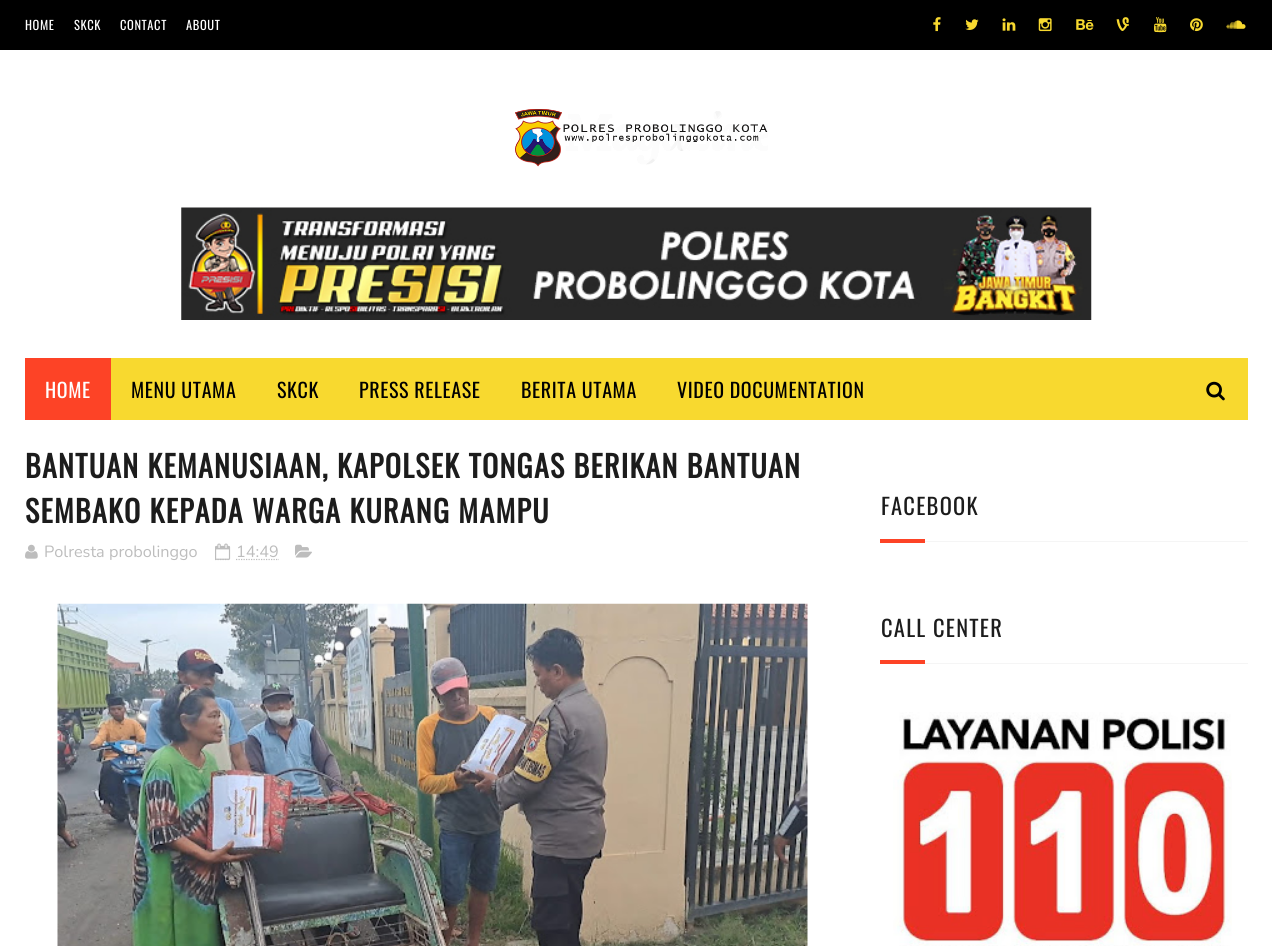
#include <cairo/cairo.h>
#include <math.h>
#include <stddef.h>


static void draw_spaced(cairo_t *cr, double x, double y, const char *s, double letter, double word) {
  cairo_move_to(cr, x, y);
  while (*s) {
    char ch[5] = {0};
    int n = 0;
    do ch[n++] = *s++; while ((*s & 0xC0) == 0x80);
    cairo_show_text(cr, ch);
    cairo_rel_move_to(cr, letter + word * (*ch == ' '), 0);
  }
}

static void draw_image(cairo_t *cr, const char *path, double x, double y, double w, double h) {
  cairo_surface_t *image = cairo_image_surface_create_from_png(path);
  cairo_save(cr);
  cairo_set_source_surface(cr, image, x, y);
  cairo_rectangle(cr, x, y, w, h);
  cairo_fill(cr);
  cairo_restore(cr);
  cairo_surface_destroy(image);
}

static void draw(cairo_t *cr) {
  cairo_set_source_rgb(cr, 1, 1, 1);
  cairo_paint(cr);
  cairo_set_source_rgb(cr, 0, 0, 0);
  cairo_rectangle(cr, 0, 0, 1272, 50);
  cairo_fill(cr);
  draw_image(cr, "images/1.png", 933, 17, 8, 15);
  draw_image(cr, "images/2.png", 965, 19, 14, 11);
  draw_image(cr, "images/3.png", 1002, 18, 14, 13);
  draw_image(cr, "images/4.png", 1038, 18, 14, 14);
  draw_image(cr, "images/5.png", 1076, 19, 18, 11);
  draw_image(cr, "images/6.png", 1116, 17, 13, 14);
  draw_image(cr, "images/7.png", 1154, 17, 13, 16);
  draw_image(cr, "images/8.png", 1190, 18, 13, 14);
  draw_image(cr, "images/9.png", 1226, 20, 20, 9);
  draw_image(cr, "images/10.png", 515, 109, 253, 58);
  draw_image(cr, "images/11.png", 181, 207, 911, 113);
  cairo_set_source_rgb(cr, 248 / 255.0, 217 / 255.0, 47 / 255.0);
  cairo_rectangle(cr, 111, 358, 1137, 62);
  cairo_fill(cr);
  cairo_set_source_rgb(cr, 253 / 255.0, 67 / 255.0, 38 / 255.0);
  cairo_rectangle(cr, 25, 358, 86, 62);
  cairo_fill(cr);
  draw_image(cr, "images/12.png", 1206, 381, 19, 20);
  draw_image(cr, "images/13.png", 25, 544, 13, 15);
  cairo_new_path(cr);
  cairo_move_to(cr, 215, 559.5);
  cairo_line_to(cr, 230, 559.5);
  cairo_set_source_rgb(cr, 189 / 255.0, 189 / 255.0, 189 / 255.0);
  cairo_set_line_width(cr, 1.2);
  cairo_set_dash(cr, (double[]){1.25, 1.25}, 2, 0);
  cairo_stroke(cr);
  draw_image(cr, "images/14.png", 215, 543, 16, 17);
  cairo_new_path(cr);
  cairo_move_to(cr, 236, 559.5);
  cairo_line_to(cr, 279, 559.5);
  cairo_stroke(cr);
  draw_image(cr, "images/15.png", 295, 544, 17, 14);
  draw_image(cr, "images/16.png", 57, 603, 751, 343);
  cairo_set_source_rgb(cr, 245 / 255.0, 245 / 255.0, 245 / 255.0);
  cairo_rectangle(cr, 925, 541, 323, 1);
  cairo_fill(cr);
  cairo_set_source_rgb(cr, 253 / 255.0, 67 / 255.0, 38 / 255.0);
  cairo_rectangle(cr, 880, 539, 45, 4);
  cairo_fill(cr);
  cairo_set_source_rgb(cr, 245 / 255.0, 245 / 255.0, 245 / 255.0);
  cairo_rectangle(cr, 925, 663, 323, 1);
  cairo_fill(cr);
  cairo_set_source_rgb(cr, 253 / 255.0, 67 / 255.0, 38 / 255.0);
  cairo_rectangle(cr, 880, 660, 45, 4);
  cairo_fill(cr);
  draw_image(cr, "images/17.png", 893, 712, 339, 234);
  cairo_select_font_face(cr, "Oswald", CAIRO_FONT_SLANT_NORMAL, CAIRO_FONT_WEIGHT_NORMAL);
  cairo_set_font_size(cr, 12.5);
  cairo_set_source_rgb(cr, 1, 1, 1);
  draw_spaced(cr, 25, 30, "HOME", 0.6, 0);
  draw_spaced(cr, 74, 30, "SKCK", 0.6, 0);
  draw_spaced(cr, 120, 30, "CONTACT", 0.6, 0);
  draw_spaced(cr, 186, 30, "ABOUT", 0.6, 0);
  cairo_set_font_size(cr, 20);
  draw_spaced(cr, 45, 398, "HOME", 0.6, 0);
  cairo_set_source_rgb(cr, 0, 0, 0);
  draw_spaced(cr, 131, 398, "MENU UTAMA", 0.6, 0);
  draw_spaced(cr, 277, 398, "SKCK", 0.6, 0);
  draw_spaced(cr, 359, 398, "PRESS RELEASE", 0.6, 0);
  draw_spaced(cr, 521, 398, "BERITA UTAMA", 0.6, 0);
  draw_spaced(cr, 677, 398, "VIDEO DOCUMENTATION", 0.6, 0);
  cairo_select_font_face(cr, "Oswald", CAIRO_FONT_SLANT_NORMAL, CAIRO_FONT_WEIGHT_BOLD);
  cairo_set_font_size(cr, 30);
  cairo_set_source_rgb(cr, 28 / 255.0, 28 / 255.0, 28 / 255.0);
  draw_spaced(cr, 25, 478, "BANTUAN KEMANUSIAAN, KAPOLSEK TONGAS BERIKAN BANTUAN", 1.25, 0);
  draw_spaced(cr, 25, 523, "SEMBAKO KEPADA WARGA KURANG MAMPU", 1.25, 0);
  cairo_select_font_face(cr, "Nunito", CAIRO_FONT_SLANT_NORMAL, CAIRO_FONT_WEIGHT_NORMAL);
  cairo_set_font_size(cr, 16.25);
  cairo_set_source_rgb(cr, 189 / 255.0, 189 / 255.0, 189 / 255.0);
  cairo_move_to(cr, 44, 557);
  cairo_show_text(cr, "Polresta probolinggo");
  cairo_move_to(cr, 236, 557);
  cairo_show_text(cr, "14:49");
  cairo_select_font_face(cr, "Oswald", CAIRO_FONT_SLANT_NORMAL, CAIRO_FONT_WEIGHT_NORMAL);
  cairo_set_font_size(cr, 22.5);
  cairo_set_source_rgb(cr, 28 / 255.0, 28 / 255.0, 28 / 255.0);
  draw_spaced(cr, 881, 515, "FACEBOOK", 1.25, 0);
  draw_spaced(cr, 881, 637, "CALL CENTER", 1.25, 0);
}

int main(void) {
  cairo_surface_t *surface = cairo_image_surface_create(CAIRO_FORMAT_RGB24, 1272, 946);
  cairo_t *cr = cairo_create(surface);
  cairo_font_options_t *options = cairo_font_options_create();
  cairo_font_options_set_hint_metrics(options, CAIRO_HINT_METRICS_OFF);
  cairo_font_options_set_hint_style(options, CAIRO_HINT_STYLE_NONE);
  cairo_set_font_options(cr, options);
  cairo_set_miter_limit(cr, 4);
  draw(cr);
  cairo_surface_write_to_png(surface, "out.png");
  cairo_font_options_destroy(options);
  cairo_destroy(cr);
  cairo_surface_destroy(surface);
  return 0;
}
